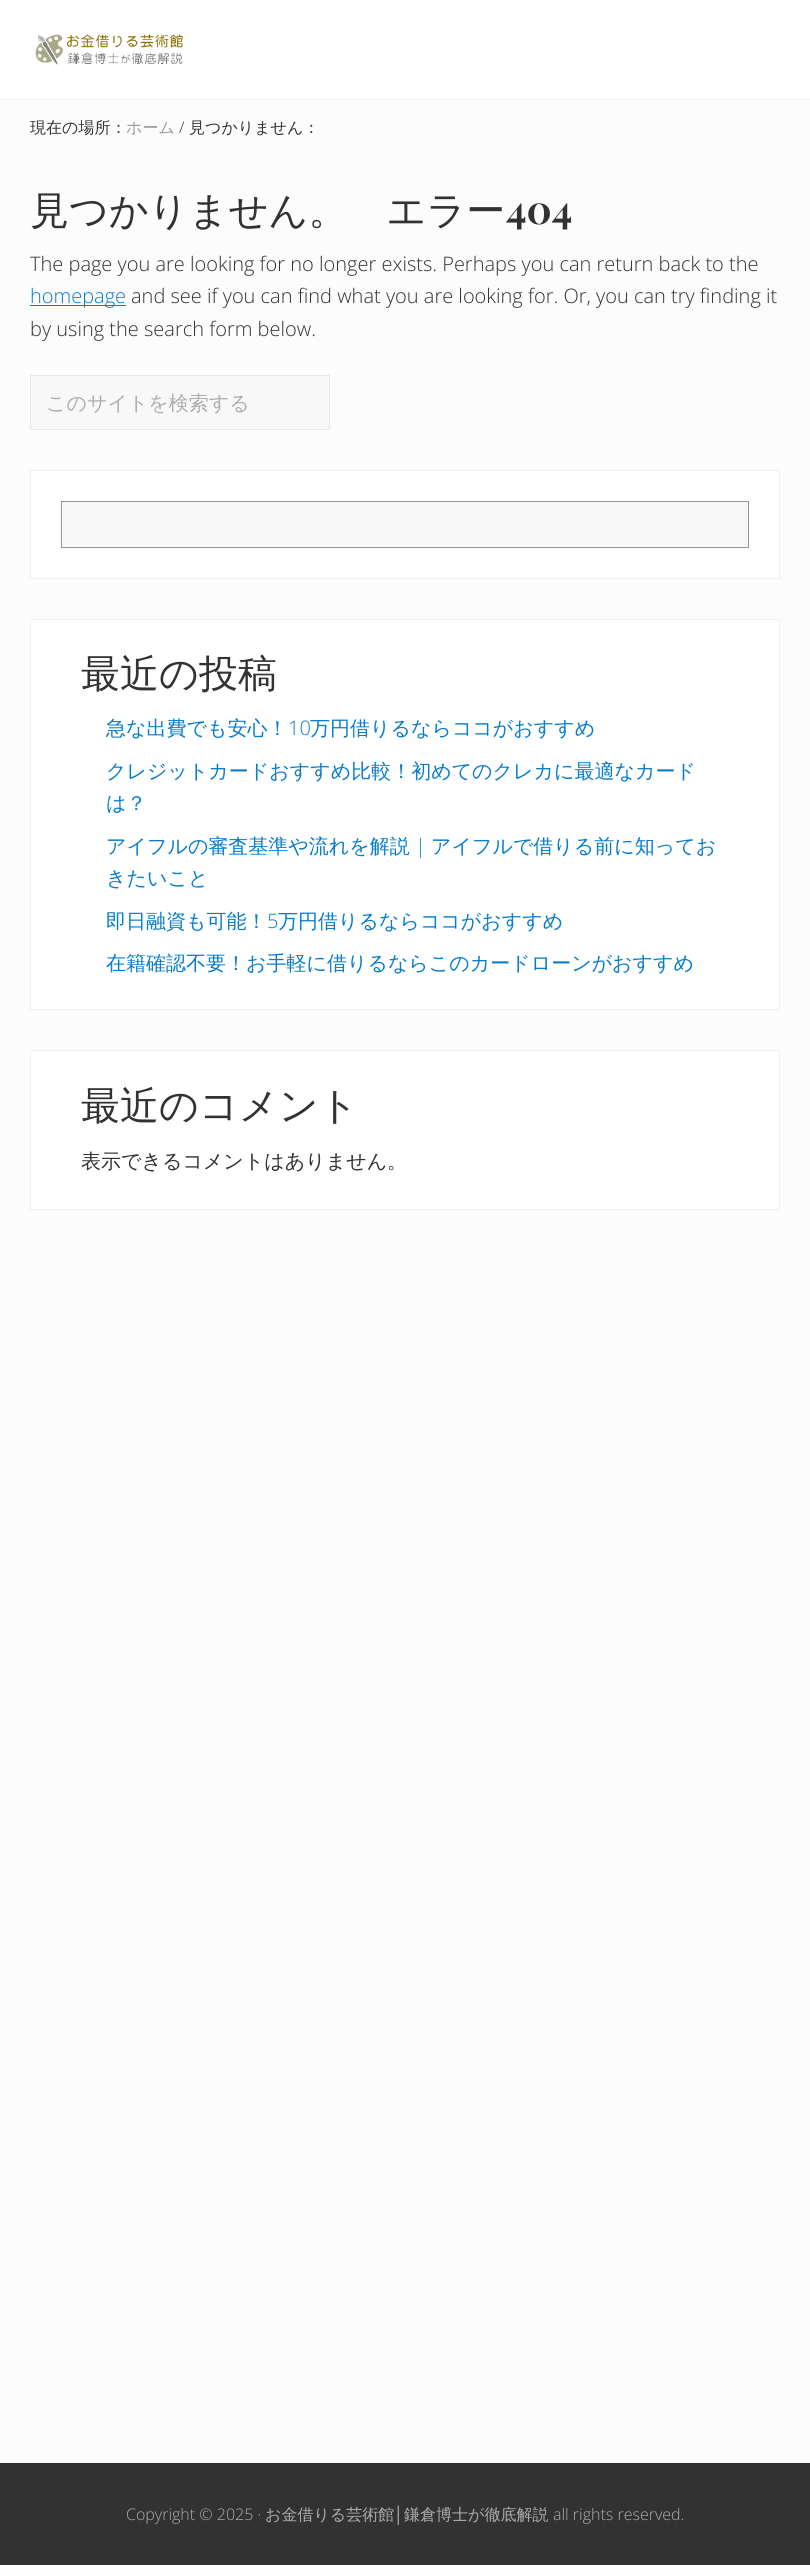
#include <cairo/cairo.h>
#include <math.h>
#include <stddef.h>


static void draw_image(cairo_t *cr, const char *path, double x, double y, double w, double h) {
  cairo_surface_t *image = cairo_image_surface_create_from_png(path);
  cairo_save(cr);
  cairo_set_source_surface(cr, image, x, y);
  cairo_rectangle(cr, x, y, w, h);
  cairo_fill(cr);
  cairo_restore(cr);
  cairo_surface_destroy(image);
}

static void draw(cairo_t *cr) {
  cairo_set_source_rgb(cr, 252 / 255.0, 252 / 255.0, 252 / 255.0);
  cairo_paint(cr);
  cairo_set_source_rgb(cr, 1, 1, 1);
  cairo_rectangle(cr, 0, 0, 810, 99);
  cairo_fill(cr);
  cairo_set_source_rgb(cr, 242 / 255.0, 242 / 255.0, 242 / 255.0);
  cairo_rectangle(cr, 0, 99, 810, 1);
  cairo_fill(cr);
  draw_image(cr, "images/1.png", 35, 34, 148, 31);
  cairo_set_source_rgb(cr, 6 / 255.0, 124 / 255.0, 204 / 255.0);
  cairo_rectangle(cr, 30, 305, 96, 1);
  cairo_fill(cr);
  cairo_set_source_rgb(cr, 248 / 255.0, 248 / 255.0, 248 / 255.0);
  cairo_rectangle(cr, 30.5, 375.5, 299, 54);
  cairo_fill_preserve(cr);
  cairo_set_source_rgb(cr, 233 / 255.0, 233 / 255.0, 233 / 255.0);
  cairo_set_line_width(cr, 1);
  cairo_stroke(cr);
  cairo_set_source_rgb(cr, 1, 1, 1);
  cairo_rectangle(cr, 30.5, 470.5, 749, 108);
  cairo_fill_preserve(cr);
  cairo_set_source_rgb(cr, 240 / 255.0, 240 / 255.0, 240 / 255.0);
  cairo_stroke(cr);
  cairo_set_source_rgb(cr, 248 / 255.0, 248 / 255.0, 248 / 255.0);
  cairo_rectangle(cr, 61.5, 501.5, 687, 46);
  cairo_fill_preserve(cr);
  cairo_set_source_rgb(cr, 148 / 255.0, 148 / 255.0, 148 / 255.0);
  cairo_stroke(cr);
  cairo_set_source_rgb(cr, 1, 1, 1);
  cairo_rectangle(cr, 30.5, 619.5, 749, 390);
  cairo_fill_preserve(cr);
  cairo_set_source_rgb(cr, 240 / 255.0, 240 / 255.0, 240 / 255.0);
  cairo_stroke(cr);
  cairo_set_source_rgb(cr, 1, 1, 1);
  cairo_rectangle(cr, 30.5, 1050.5, 749, 159);
  cairo_fill_preserve(cr);
  cairo_set_source_rgb(cr, 240 / 255.0, 240 / 255.0, 240 / 255.0);
  cairo_stroke(cr);
  cairo_set_source_rgb(cr, 50 / 255.0, 50 / 255.0, 50 / 255.0);
  cairo_rectangle(cr, 0, 2464, 810, 101);
  cairo_fill(cr);
  cairo_set_source_rgb(cr, 45 / 255.0, 45 / 255.0, 45 / 255.0);
  cairo_rectangle(cr, 0, 2463, 810, 1);
  cairo_fill(cr);
  cairo_select_font_face(cr, "WenQuanYi Zen Hei Medium", CAIRO_FONT_SLANT_NORMAL, CAIRO_FONT_WEIGHT_NORMAL);
  cairo_set_font_size(cr, 16);
  cairo_set_source_rgb(cr, 50 / 255.0, 50 / 255.0, 50 / 255.0);
  cairo_move_to(cr, 30, 133);
  cairo_show_text(cr, "現在の場所：");
  cairo_set_source_rgb(cr, 151 / 255.0, 151 / 255.0, 151 / 255.0);
  cairo_move_to(cr, 126, 133);
  cairo_show_text(cr, "ホーム");
  cairo_select_font_face(cr, "Open Sans Light", CAIRO_FONT_SLANT_NORMAL, CAIRO_FONT_WEIGHT_NORMAL);
  cairo_set_source_rgb(cr, 50 / 255.0, 50 / 255.0, 50 / 255.0);
  cairo_move_to(cr, 179, 133);
  cairo_show_text(cr, "/");
  cairo_select_font_face(cr, "WenQuanYi Zen Hei Medium", CAIRO_FONT_SLANT_NORMAL, CAIRO_FONT_WEIGHT_NORMAL);
  cairo_move_to(cr, 189, 133);
  cairo_show_text(cr, "見つかりません：");
  cairo_set_font_size(cr, 39);
  cairo_move_to(cr, 30, 224);
  cairo_show_text(cr, "見つかりません。　エラー");
  cairo_select_font_face(cr, "Playfair Display", CAIRO_FONT_SLANT_NORMAL, CAIRO_FONT_WEIGHT_BOLD);
  cairo_move_to(cr, 506, 224);
  cairo_show_text(cr, "404");
  cairo_select_font_face(cr, "Open Sans Light", CAIRO_FONT_SLANT_NORMAL, CAIRO_FONT_WEIGHT_NORMAL);
  cairo_set_font_size(cr, 20);
  cairo_move_to(cr, 30, 271);
  cairo_show_text(cr, "The page you are looking for no longer exists. Perhaps you can return back to the");
  cairo_set_source_rgb(cr, 6 / 255.0, 124 / 255.0, 204 / 255.0);
  cairo_move_to(cr, 30, 303);
  cairo_show_text(cr, "homepage");
  cairo_set_source_rgb(cr, 50 / 255.0, 50 / 255.0, 50 / 255.0);
  cairo_move_to(cr, 131, 303);
  cairo_show_text(cr, "and see if you can find what you are looking for. Or, you can try finding it");
  cairo_move_to(cr, 30, 336);
  cairo_show_text(cr, "by using the search form below.");
  cairo_select_font_face(cr, "WenQuanYi Zen Hei Medium", CAIRO_FONT_SLANT_NORMAL, CAIRO_FONT_WEIGHT_NORMAL);
  cairo_set_source_rgb(cr, 173 / 255.0, 173 / 255.0, 173 / 255.0);
  cairo_move_to(cr, 46, 410);
  cairo_show_text(cr, "このサイトを検索する");
  cairo_set_font_size(cr, 39);
  cairo_set_source_rgb(cr, 50 / 255.0, 50 / 255.0, 50 / 255.0);
  cairo_move_to(cr, 81, 687);
  cairo_show_text(cr, "最近の投稿");
  cairo_set_font_size(cr, 20);
  cairo_set_source_rgb(cr, 6 / 255.0, 124 / 255.0, 204 / 255.0);
  cairo_move_to(cr, 106, 735);
  cairo_show_text(cr, "急な出費でも安心！");
  cairo_select_font_face(cr, "Open Sans Light", CAIRO_FONT_SLANT_NORMAL, CAIRO_FONT_WEIGHT_NORMAL);
  cairo_move_to(cr, 288, 735);
  cairo_show_text(cr, "10");
  cairo_select_font_face(cr, "WenQuanYi Zen Hei Medium", CAIRO_FONT_SLANT_NORMAL, CAIRO_FONT_WEIGHT_NORMAL);
  cairo_move_to(cr, 310, 735);
  cairo_show_text(cr, "万円借りるならココがおすすめ");
  cairo_move_to(cr, 106, 778);
  cairo_show_text(cr, "クレジットカードおすすめ比較！初めてのクレカに最適なカード");
  cairo_move_to(cr, 106, 810);
  cairo_show_text(cr, "は？");
  cairo_move_to(cr, 106, 853);
  cairo_show_text(cr, "アイフルの審査基準や流れを解説");
  cairo_select_font_face(cr, "Open Sans Light", CAIRO_FONT_SLANT_NORMAL, CAIRO_FONT_WEIGHT_NORMAL);
  cairo_move_to(cr, 415, 853);
  cairo_show_text(cr, "|");
  cairo_select_font_face(cr, "WenQuanYi Zen Hei Medium", CAIRO_FONT_SLANT_NORMAL, CAIRO_FONT_WEIGHT_NORMAL);
  cairo_move_to(cr, 431, 853);
  cairo_show_text(cr, "アイフルで借りる前に知ってお");
  cairo_move_to(cr, 106, 885);
  cairo_show_text(cr, "きたいこと");
  cairo_move_to(cr, 106, 928);
  cairo_show_text(cr, "即日融資も可能！");
  cairo_select_font_face(cr, "Open Sans Light", CAIRO_FONT_SLANT_NORMAL, CAIRO_FONT_WEIGHT_NORMAL);
  cairo_move_to(cr, 267, 928);
  cairo_show_text(cr, "5");
  cairo_select_font_face(cr, "WenQuanYi Zen Hei Medium", CAIRO_FONT_SLANT_NORMAL, CAIRO_FONT_WEIGHT_NORMAL);
  cairo_move_to(cr, 278, 928);
  cairo_show_text(cr, "万円借りるならココがおすすめ");
  cairo_move_to(cr, 106, 970);
  cairo_show_text(cr, "在籍確認不要！お手軽に借りるならこのカードローンがおすすめ");
  cairo_set_font_size(cr, 39);
  cairo_set_source_rgb(cr, 50 / 255.0, 50 / 255.0, 50 / 255.0);
  cairo_move_to(cr, 81, 1119);
  cairo_show_text(cr, "最近のコメント");
  cairo_set_font_size(cr, 20);
  cairo_move_to(cr, 81, 1168);
  cairo_show_text(cr, "表示できるコメントはありません。");
  cairo_select_font_face(cr, "Open Sans Light", CAIRO_FONT_SLANT_NORMAL, CAIRO_FONT_WEIGHT_NORMAL);
  cairo_set_font_size(cr, 16);
  cairo_set_source_rgb(cr, 173 / 255.0, 173 / 255.0, 173 / 255.0);
  cairo_move_to(cr, 126, 2520);
  cairo_show_text(cr, "Copyright © 2025 ·");
  cairo_select_font_face(cr, "WenQuanYi Zen Hei Medium", CAIRO_FONT_SLANT_NORMAL, CAIRO_FONT_WEIGHT_NORMAL);
  cairo_move_to(cr, 265, 2520);
  cairo_show_text(cr, "お金借りる芸術館");
  cairo_select_font_face(cr, "Liberation Sans", CAIRO_FONT_SLANT_NORMAL, CAIRO_FONT_WEIGHT_NORMAL);
  cairo_move_to(cr, 394, 2520);
  cairo_show_text(cr, "│");
  cairo_select_font_face(cr, "WenQuanYi Zen Hei Medium", CAIRO_FONT_SLANT_NORMAL, CAIRO_FONT_WEIGHT_NORMAL);
  cairo_move_to(cr, 404, 2520);
  cairo_show_text(cr, "鎌倉博士が徹底解説");
  cairo_select_font_face(cr, "Open Sans Light", CAIRO_FONT_SLANT_NORMAL, CAIRO_FONT_WEIGHT_NORMAL);
  cairo_move_to(cr, 553, 2520);
  cairo_show_text(cr, "all rights reserved.");
}

int main(void) {
  cairo_surface_t *surface = cairo_image_surface_create(CAIRO_FORMAT_RGB24, 810, 2565);
  cairo_t *cr = cairo_create(surface);
  cairo_font_options_t *options = cairo_font_options_create();
  cairo_font_options_set_hint_metrics(options, CAIRO_HINT_METRICS_OFF);
  cairo_font_options_set_hint_style(options, CAIRO_HINT_STYLE_NONE);
  cairo_set_font_options(cr, options);
  cairo_set_miter_limit(cr, 4);
  draw(cr);
  cairo_surface_write_to_png(surface, "out.png");
  cairo_font_options_destroy(options);
  cairo_destroy(cr);
  cairo_surface_destroy(surface);
  return 0;
}
